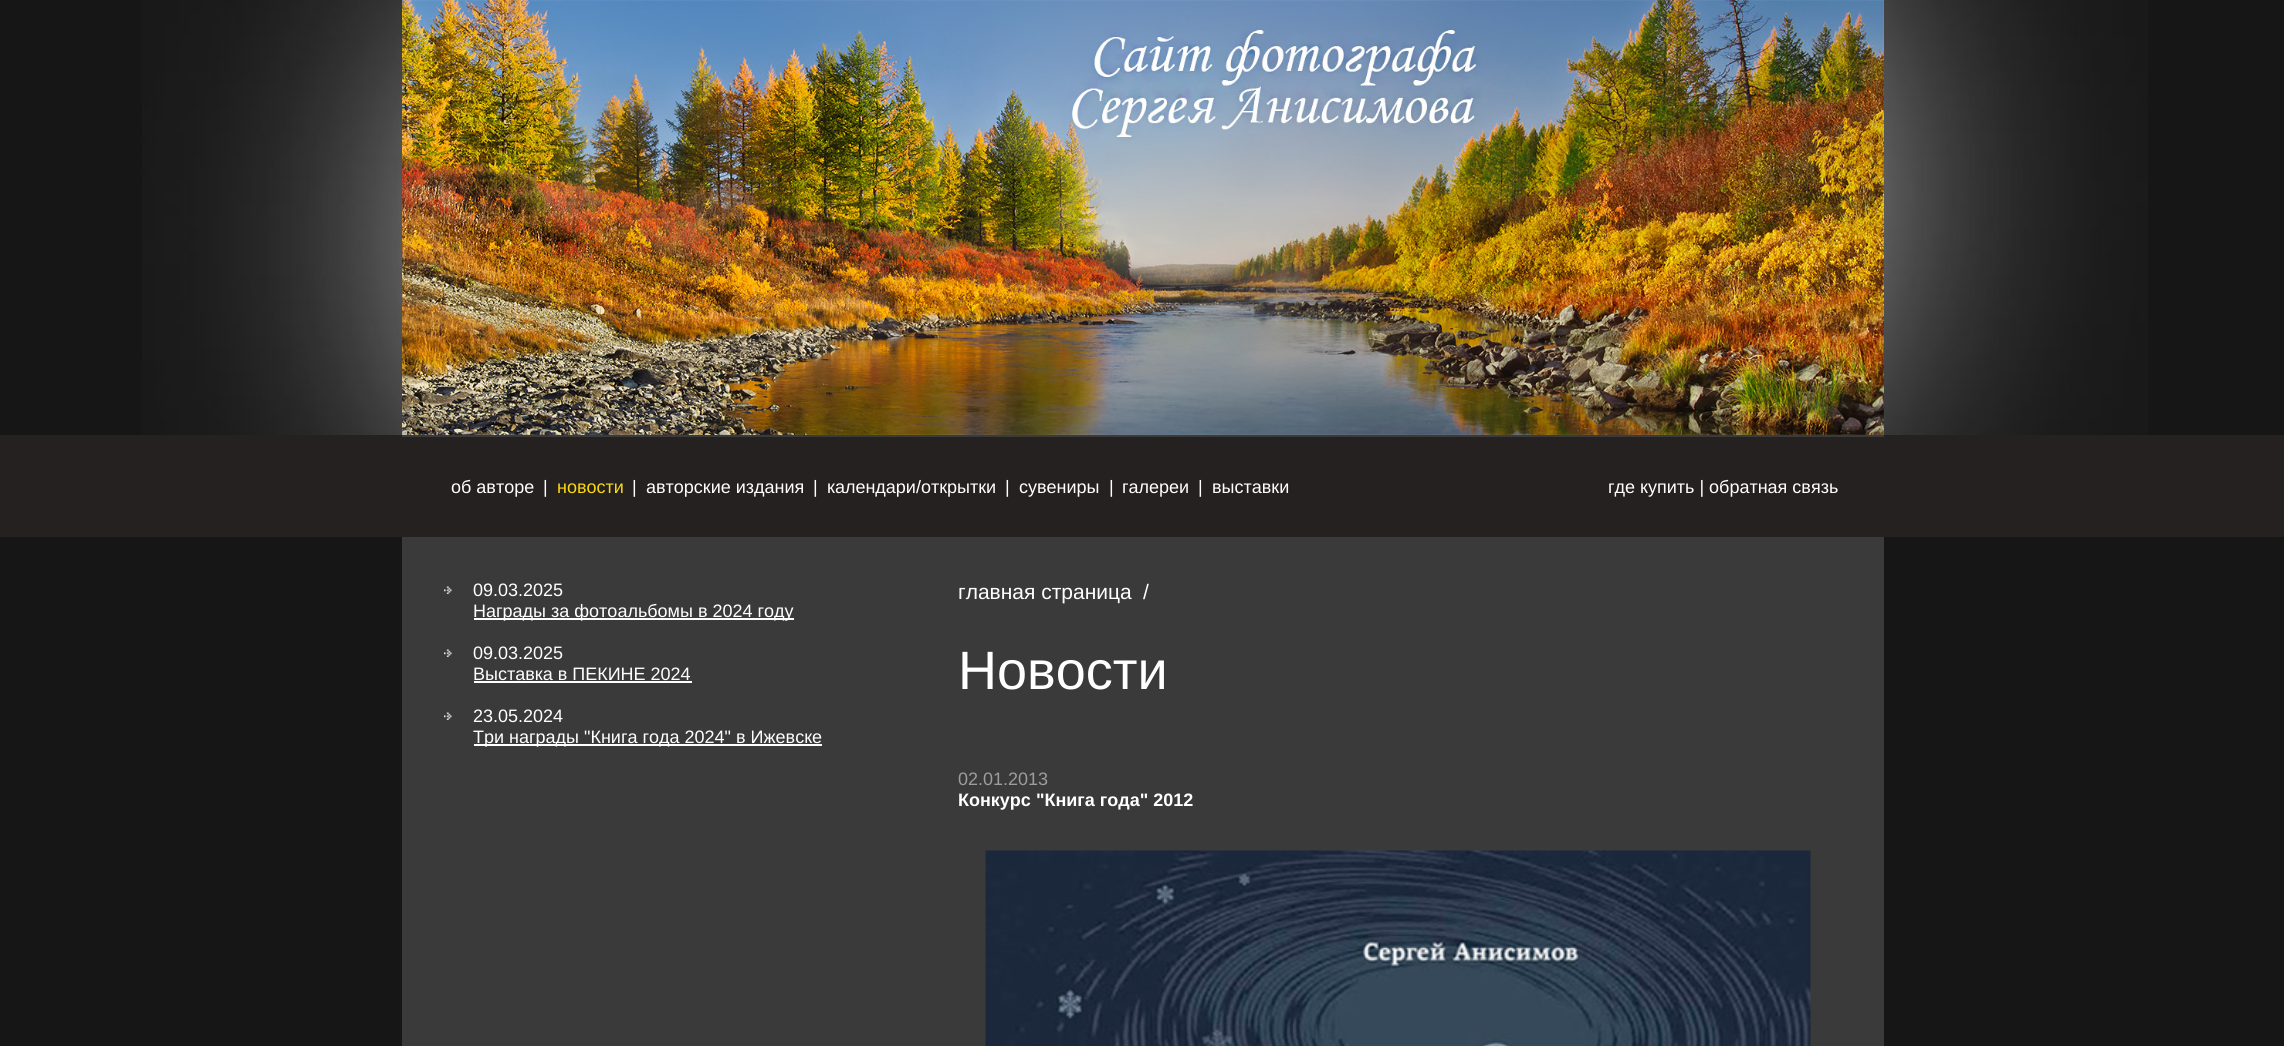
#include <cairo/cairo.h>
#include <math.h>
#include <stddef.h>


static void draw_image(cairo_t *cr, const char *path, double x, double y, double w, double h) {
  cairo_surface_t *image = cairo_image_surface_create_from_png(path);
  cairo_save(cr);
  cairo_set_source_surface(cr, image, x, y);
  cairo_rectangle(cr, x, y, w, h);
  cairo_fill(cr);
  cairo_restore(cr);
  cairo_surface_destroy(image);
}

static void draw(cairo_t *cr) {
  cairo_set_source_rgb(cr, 22 / 255.0, 22 / 255.0, 22 / 255.0);
  cairo_paint(cr);
  draw_image(cr, "images/1.png", 142, 0, 260, 435);
  draw_image(cr, "images/2.png", 402, 0, 1482, 435);
  draw_image(cr, "images/3.png", 1884, 0, 264, 435);
  cairo_set_source_rgb(cr, 38 / 255.0, 33 / 255.0, 33 / 255.0);
  cairo_rectangle(cr, 0, 435, 2284, 102);
  cairo_fill(cr);
  cairo_set_source_rgb(cr, 58 / 255.0, 58 / 255.0, 58 / 255.0);
  cairo_rectangle(cr, 402, 435, 1482, 2);
  cairo_fill(cr);
  cairo_rectangle(cr, 402, 537, 1482, 509);
  cairo_fill(cr);
  draw_image(cr, "images/4.png", 444, 586, 8, 8);
  cairo_set_source_rgb(cr, 1, 1, 1);
  cairo_rectangle(cr, 474, 618, 320, 2);
  cairo_fill(cr);
  draw_image(cr, "images/4.png", 444, 649, 8, 8);
  cairo_rectangle(cr, 474, 681, 218, 2);
  cairo_fill(cr);
  draw_image(cr, "images/4.png", 444, 712, 8, 8);
  cairo_rectangle(cr, 474, 744, 348, 2);
  cairo_fill(cr);
  draw_image(cr, "images/5.png", 985, 850, 826, 196);
  cairo_select_font_face(cr, "Liberation Sans", CAIRO_FONT_SLANT_NORMAL, CAIRO_FONT_WEIGHT_NORMAL);
  cairo_set_font_size(cr, 18);
  cairo_move_to(cr, 451, 493);
  cairo_show_text(cr, "об авторе");
  cairo_move_to(cr, 543, 493);
  cairo_show_text(cr, "|");
  cairo_set_source_rgb(cr, 251 / 255.0, 215 / 255.0, 17 / 255.0);
  cairo_move_to(cr, 557, 493);
  cairo_show_text(cr, "новости");
  cairo_set_source_rgb(cr, 1, 1, 1);
  cairo_move_to(cr, 632, 493);
  cairo_show_text(cr, "|");
  cairo_move_to(cr, 646, 493);
  cairo_show_text(cr, "авторские издания");
  cairo_move_to(cr, 813, 493);
  cairo_show_text(cr, "|");
  cairo_move_to(cr, 827, 493);
  cairo_show_text(cr, "календари/открытки");
  cairo_move_to(cr, 1005, 493);
  cairo_show_text(cr, "|");
  cairo_move_to(cr, 1019, 493);
  cairo_show_text(cr, "сувениры");
  cairo_move_to(cr, 1109, 493);
  cairo_show_text(cr, "|");
  cairo_move_to(cr, 1122, 493);
  cairo_show_text(cr, "галереи");
  cairo_move_to(cr, 1198, 493);
  cairo_show_text(cr, "|");
  cairo_move_to(cr, 1212, 493);
  cairo_show_text(cr, "выставки");
  cairo_move_to(cr, 1608, 493);
  cairo_show_text(cr, "где купить | обратная связь");
  cairo_move_to(cr, 473, 596);
  cairo_show_text(cr, "09.03.2025");
  cairo_move_to(cr, 473, 617);
  cairo_show_text(cr, "Награды за фотоальбомы в 2024 году");
  cairo_move_to(cr, 473, 659);
  cairo_show_text(cr, "09.03.2025");
  cairo_move_to(cr, 473, 680);
  cairo_show_text(cr, "Выставка в ПЕКИНЕ 2024");
  cairo_move_to(cr, 473, 722);
  cairo_show_text(cr, "23.05.2024");
  cairo_move_to(cr, 473, 743);
  cairo_show_text(cr, "Три награды \"Книга года 2024\" в Ижевске");
  cairo_set_font_size(cr, 21);
  cairo_move_to(cr, 958, 599);
  cairo_show_text(cr, "главная страница");
  cairo_move_to(cr, 1143, 599);
  cairo_show_text(cr, "/");
  cairo_set_font_size(cr, 54);
  cairo_move_to(cr, 958, 689);
  cairo_show_text(cr, "Новости");
  cairo_set_font_size(cr, 18);
  cairo_set_source_rgb(cr, 157 / 255.0, 157 / 255.0, 157 / 255.0);
  cairo_move_to(cr, 958, 785);
  cairo_show_text(cr, "02.01.2013");
  cairo_select_font_face(cr, "Liberation Sans", CAIRO_FONT_SLANT_NORMAL, CAIRO_FONT_WEIGHT_BOLD);
  cairo_set_source_rgb(cr, 1, 1, 1);
  cairo_move_to(cr, 958, 806);
  cairo_show_text(cr, "Конкурс \"Книга года\" 2012");
}

int main(void) {
  cairo_surface_t *surface = cairo_image_surface_create(CAIRO_FORMAT_RGB24, 2284, 1046);
  cairo_t *cr = cairo_create(surface);
  cairo_font_options_t *options = cairo_font_options_create();
  cairo_font_options_set_hint_metrics(options, CAIRO_HINT_METRICS_OFF);
  cairo_font_options_set_hint_style(options, CAIRO_HINT_STYLE_NONE);
  cairo_set_font_options(cr, options);
  cairo_set_miter_limit(cr, 4);
  draw(cr);
  cairo_surface_write_to_png(surface, "out.png");
  cairo_font_options_destroy(options);
  cairo_destroy(cr);
  cairo_surface_destroy(surface);
  return 0;
}
